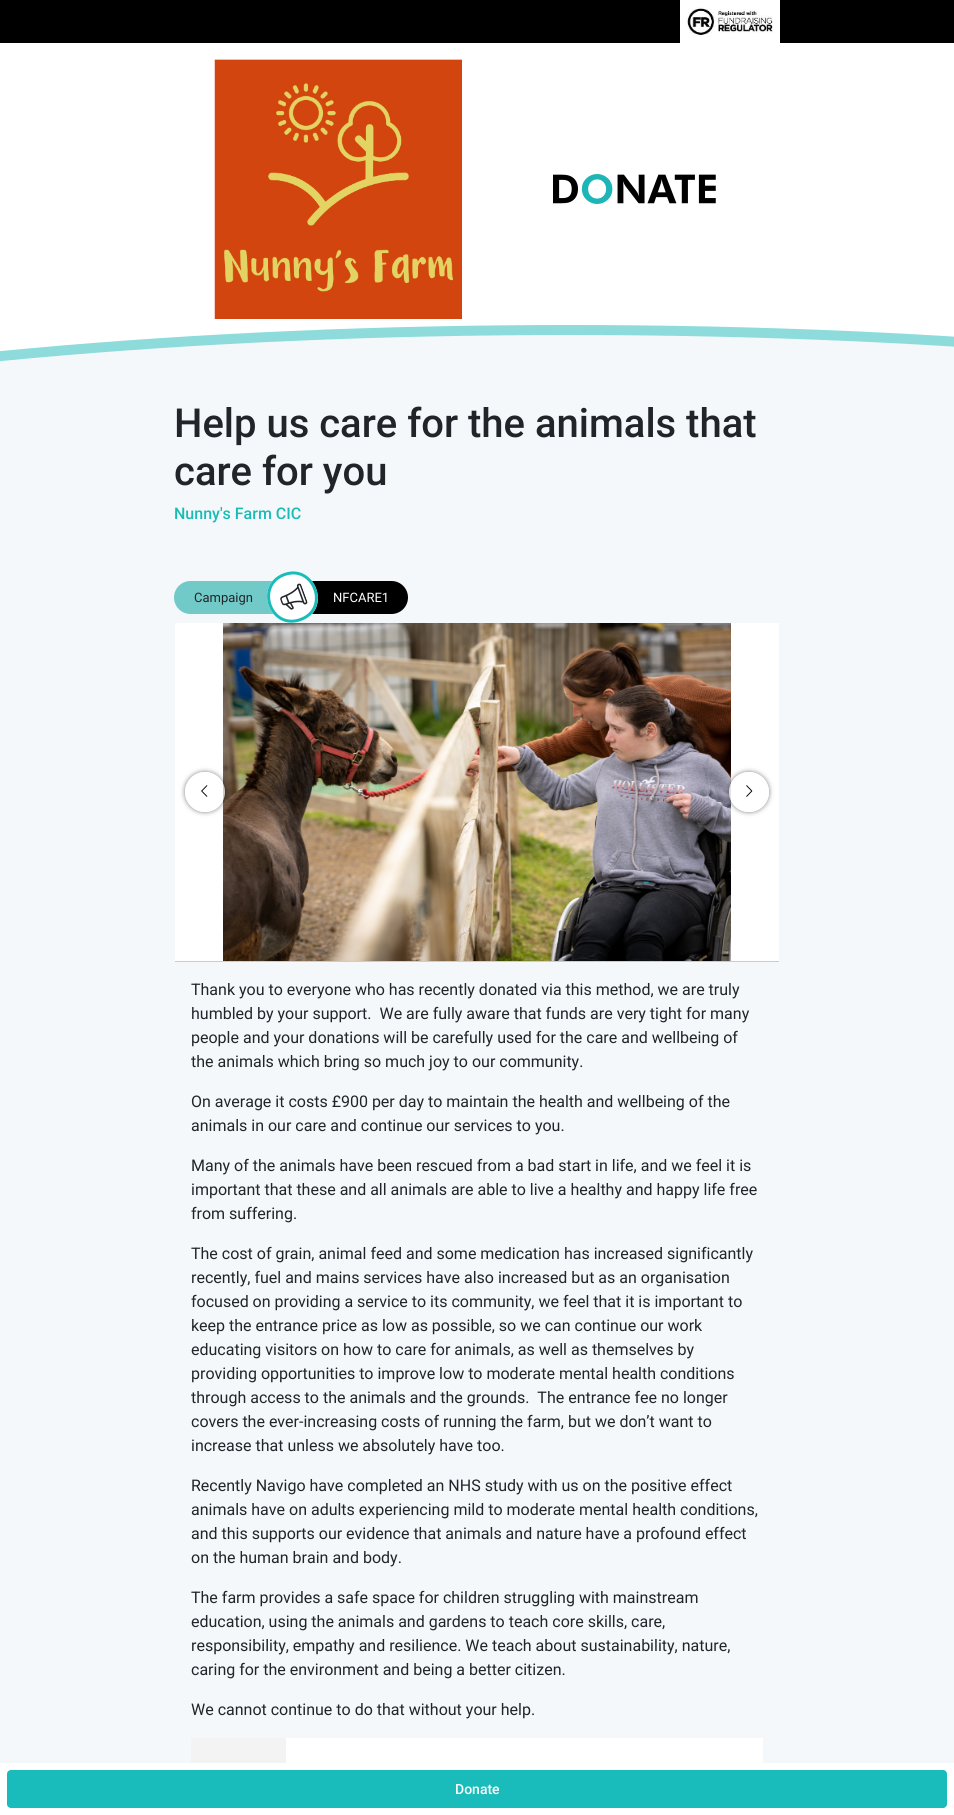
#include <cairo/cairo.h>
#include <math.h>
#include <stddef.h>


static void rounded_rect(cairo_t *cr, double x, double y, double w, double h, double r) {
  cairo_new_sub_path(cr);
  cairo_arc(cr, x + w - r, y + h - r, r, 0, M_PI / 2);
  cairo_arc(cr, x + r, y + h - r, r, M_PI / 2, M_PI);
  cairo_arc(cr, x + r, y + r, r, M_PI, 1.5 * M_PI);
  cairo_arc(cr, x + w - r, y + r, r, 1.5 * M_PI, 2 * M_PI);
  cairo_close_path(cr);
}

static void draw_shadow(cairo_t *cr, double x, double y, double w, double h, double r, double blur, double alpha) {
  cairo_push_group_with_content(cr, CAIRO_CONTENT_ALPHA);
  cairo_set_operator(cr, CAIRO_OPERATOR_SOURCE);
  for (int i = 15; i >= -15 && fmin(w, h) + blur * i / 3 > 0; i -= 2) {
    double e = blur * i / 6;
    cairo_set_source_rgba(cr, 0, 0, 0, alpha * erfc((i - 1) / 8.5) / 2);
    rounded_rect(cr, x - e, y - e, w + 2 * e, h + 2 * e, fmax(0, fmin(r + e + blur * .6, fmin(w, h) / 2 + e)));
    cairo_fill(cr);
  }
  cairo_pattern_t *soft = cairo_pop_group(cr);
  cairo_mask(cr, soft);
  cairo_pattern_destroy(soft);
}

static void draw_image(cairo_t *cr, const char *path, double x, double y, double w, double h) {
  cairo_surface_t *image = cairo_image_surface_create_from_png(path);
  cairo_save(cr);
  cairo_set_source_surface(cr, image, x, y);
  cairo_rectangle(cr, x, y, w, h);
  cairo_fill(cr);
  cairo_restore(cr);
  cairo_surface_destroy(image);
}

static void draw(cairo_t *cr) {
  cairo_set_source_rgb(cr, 245 / 255.0, 248 / 255.0, 250 / 255.0);
  cairo_paint(cr);
  cairo_set_source_rgb(cr, 0, 0, 0);
  cairo_rectangle(cr, 0, 0, 954, 43);
  cairo_fill(cr);
  draw_image(cr, "images/1.png", 680, 0, 100, 43);
  cairo_set_source_rgb(cr, 1, 1, 1);
  cairo_rectangle(cr, 0, 43, 954, 309);
  cairo_fill(cr);
  draw_image(cr, "images/2.png", 214, 59, 248, 260);
  draw_image(cr, "images/3.png", 553, 174, 163, 30);
  cairo_save(cr);
  cairo_rectangle(cr, 0, 325, 954, 200);
  cairo_clip(cr);
  cairo_set_source_rgb(cr, 245 / 255.0, 248 / 255.0, 250 / 255.0);
  cairo_new_path(cr);
  cairo_move_to(cr, 569, 325);
  cairo_curve_to(cr, 1334.5, 325, 1955, 459.5, 1955, 625);
  cairo_curve_to(cr, 1955, 790.5, 1334.5, 925, 569, 925);
  cairo_curve_to(cr, -196.5, 925, -817, 790.5, -817, 625);
  cairo_curve_to(cr, -817, 459.5, -196.5, 325, 569, 325);
  cairo_close_path(cr);
  cairo_fill(cr);
  cairo_new_path(cr);
  cairo_move_to(cr, 569, 330);
  cairo_curve_to(cr, 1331.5, 330, 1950, 462, 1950, 625);
  cairo_curve_to(cr, 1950, 788, 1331.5, 920, 569, 920);
  cairo_curve_to(cr, -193.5, 920, -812, 788, -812, 625);
  cairo_curve_to(cr, -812, 462, -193.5, 330, 569, 330);
  cairo_close_path(cr);
  cairo_set_source_rgba(cr, 25 / 255.0, 188 / 255.0, 186 / 255.0, 0.47);
  cairo_set_line_width(cr, 10);
  cairo_stroke(cr);
  cairo_restore(cr);
  cairo_set_source_rgb(cr, 0, 0, 0);
  rounded_rect(cr, 288, 581, 120, 33, 16.5);
  cairo_fill(cr);
  cairo_set_source_rgb(cr, 114 / 255.0, 202 / 255.0, 200 / 255.0);
  rounded_rect(cr, 174, 581, 123, 33, 16.5);
  cairo_fill(cr);
  cairo_set_source_rgb(cr, 1, 1, 1);
  cairo_new_path(cr);
  cairo_move_to(cr, 284, 573);
  cairo_curve_to(cr, 315, 562, 333, 610, 301, 621);
  cairo_curve_to(cr, 270, 633, 252, 585, 284, 573);
  cairo_close_path(cr);
  cairo_fill(cr);
  cairo_new_path(cr);
  cairo_move_to(cr, 284.5, 574.5);
  cairo_curve_to(cr, 314, 564, 330.5, 609, 300.5, 619.5);
  cairo_curve_to(cr, 271, 630.5, 254.5, 585.5, 284.5, 574.5);
  cairo_close_path(cr);
  cairo_set_source_rgb(cr, 25 / 255.0, 188 / 255.0, 186 / 255.0);
  cairo_set_line_width(cr, 3);
  cairo_stroke(cr);
  draw_image(cr, "images/4.png", 280, 583, 28, 27);
  cairo_set_source_rgb(cr, 1, 1, 1);
  cairo_rectangle(cr, 175, 623, 604, 338);
  cairo_fill(cr);
  cairo_set_source_rgb(cr, 204 / 255.0, 204 / 255.0, 204 / 255.0);
  cairo_rectangle(cr, 175, 961, 604, 1);
  cairo_fill(cr);
  draw_image(cr, "images/6.png", 223, 623, 508, 338);
  cairo_save(cr);
  cairo_set_fill_rule(cr, CAIRO_FILL_RULE_EVEN_ODD);
  cairo_new_path(cr);
  cairo_move_to(cr, 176, 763);
  cairo_line_to(cr, 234, 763);
  cairo_line_to(cr, 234, 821);
  cairo_line_to(cr, 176, 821);
  cairo_close_path(cr);
  cairo_move_to(cr, 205, 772);
  cairo_curve_to(cr, 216, 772, 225, 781, 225, 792);
  cairo_curve_to(cr, 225, 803, 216, 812, 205, 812);
  cairo_curve_to(cr, 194, 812, 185, 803, 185, 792);
  cairo_curve_to(cr, 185, 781, 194, 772, 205, 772);
  cairo_close_path(cr);
  cairo_clip(cr);
  cairo_set_source_rgb(cr, 0, 0, 0);
  draw_shadow(cr, 185, 772, 40, 40, 20, 2.5, 0.5);
  cairo_restore(cr);
  cairo_set_source_rgba(cr, 1, 1, 1, 0.7);
  cairo_arc(cr, 205, 792, 20, 0, 2 * M_PI);
  cairo_fill(cr);
  draw_image(cr, "images/5.png", 201, 785, 7, 12);
  cairo_save(cr);
  cairo_set_fill_rule(cr, CAIRO_FILL_RULE_EVEN_ODD);
  cairo_new_path(cr);
  cairo_move_to(cr, 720, 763);
  cairo_line_to(cr, 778, 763);
  cairo_line_to(cr, 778, 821);
  cairo_line_to(cr, 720, 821);
  cairo_close_path(cr);
  cairo_move_to(cr, 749, 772);
  cairo_curve_to(cr, 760, 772, 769, 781, 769, 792);
  cairo_curve_to(cr, 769, 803, 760, 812, 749, 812);
  cairo_curve_to(cr, 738, 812, 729, 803, 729, 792);
  cairo_curve_to(cr, 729, 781, 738, 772, 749, 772);
  cairo_close_path(cr);
  cairo_clip(cr);
  cairo_set_source_rgb(cr, 0, 0, 0);
  draw_shadow(cr, 729, 772, 40, 40, 20, 2.5, 0.5);
  cairo_restore(cr);
  cairo_arc(cr, 749, 792, 20, 0, 2 * M_PI);
  cairo_fill(cr);
  draw_image(cr, "images/7.png", 746, 785, 7, 12);
  cairo_set_source_rgb(cr, 243 / 255.0, 243 / 255.0, 243 / 255.0);
  cairo_rectangle(cr, 191, 1738, 95, 25);
  cairo_fill(cr);
  cairo_set_source_rgb(cr, 1, 1, 1);
  cairo_rectangle(cr, 286, 1738, 477, 25);
  cairo_fill(cr);
  cairo_rectangle(cr, 0, 1763, 954, 52);
  cairo_fill(cr);
  cairo_set_source_rgb(cr, 25 / 255.0, 188 / 255.0, 186 / 255.0);
  rounded_rect(cr, 7, 1770, 940, 38, 4);
  cairo_fill(cr);
  cairo_select_font_face(cr, "Roboto Medium", CAIRO_FONT_SLANT_NORMAL, CAIRO_FONT_WEIGHT_NORMAL);
  cairo_set_font_size(cr, 40);
  cairo_set_source_rgb(cr, 33 / 255.0, 37 / 255.0, 41 / 255.0);
  cairo_move_to(cr, 174, 437);
  cairo_show_text(cr, "Help us care for the animals that");
  cairo_move_to(cr, 174, 485);
  cairo_show_text(cr, "care for you");
  cairo_set_font_size(cr, 16);
  cairo_set_source_rgb(cr, 25 / 255.0, 188 / 255.0, 181 / 255.0);
  cairo_move_to(cr, 174, 519);
  cairo_show_text(cr, "Nunny's Farm CIC");
  cairo_select_font_face(cr, "Roboto", CAIRO_FONT_SLANT_NORMAL, CAIRO_FONT_WEIGHT_NORMAL);
  cairo_set_font_size(cr, 13);
  cairo_set_source_rgb(cr, 33 / 255.0, 37 / 255.0, 41 / 255.0);
  cairo_move_to(cr, 194, 602);
  cairo_show_text(cr, "Campaign");
  cairo_set_source_rgb(cr, 1, 1, 1);
  cairo_move_to(cr, 333, 602);
  cairo_show_text(cr, "NFCARE1");
  cairo_set_font_size(cr, 16);
  cairo_set_source_rgb(cr, 33 / 255.0, 37 / 255.0, 41 / 255.0);
  cairo_move_to(cr, 191, 995);
  cairo_show_text(cr, "Thank you to everyone who has recently donated via this method, we are truly");
  cairo_move_to(cr, 191, 1019);
  cairo_show_text(cr, "humbled by your support.  We are fully aware that funds are very tight for many");
  cairo_move_to(cr, 191, 1043);
  cairo_show_text(cr, "people and your donations will be carefully used for the care and wellbeing of");
  cairo_move_to(cr, 191, 1067);
  cairo_show_text(cr, "the animals which bring so much joy to our community.");
  cairo_move_to(cr, 191, 1107);
  cairo_show_text(cr, "On average it costs £900 per day to maintain the health and wellbeing of the");
  cairo_move_to(cr, 191, 1131);
  cairo_show_text(cr, "animals in our care and continue our services to you.");
  cairo_move_to(cr, 191, 1171);
  cairo_show_text(cr, "Many of the animals have been rescued from a bad start in life, and we feel it is");
  cairo_move_to(cr, 191, 1195);
  cairo_show_text(cr, "important that these and all animals are able to live a healthy and happy life free");
  cairo_move_to(cr, 191, 1219);
  cairo_show_text(cr, "from suffering.");
  cairo_move_to(cr, 191, 1259);
  cairo_show_text(cr, "The cost of grain, animal feed and some medication has increased significantly");
  cairo_move_to(cr, 191, 1283);
  cairo_show_text(cr, "recently, fuel and mains services have also increased but as an organisation");
  cairo_move_to(cr, 191, 1307);
  cairo_show_text(cr, "focused on providing a service to its community, we feel that it is important to");
  cairo_move_to(cr, 191, 1331);
  cairo_show_text(cr, "keep the entrance price as low as possible, so we can continue our work");
  cairo_move_to(cr, 191, 1355);
  cairo_show_text(cr, "educating visitors on how to care for animals, as well as themselves by");
  cairo_move_to(cr, 191, 1379);
  cairo_show_text(cr, "providing opportunities to improve low to moderate mental health conditions");
  cairo_move_to(cr, 191, 1403);
  cairo_show_text(cr, "through access to the animals and the grounds.  The entrance fee no longer");
  cairo_move_to(cr, 191, 1427);
  cairo_show_text(cr, "covers the ever-increasing costs of running the farm, but we don’t want to");
  cairo_move_to(cr, 191, 1451);
  cairo_show_text(cr, "increase that unless we absolutely have too.");
  cairo_move_to(cr, 191, 1491);
  cairo_show_text(cr, "Recently Navigo have completed an NHS study with us on the positive effect");
  cairo_move_to(cr, 191, 1515);
  cairo_show_text(cr, "animals have on adults experiencing mild to moderate mental health conditions,");
  cairo_move_to(cr, 191, 1539);
  cairo_show_text(cr, "and this supports our evidence that animals and nature have a profound effect");
  cairo_move_to(cr, 191, 1563);
  cairo_show_text(cr, "on the human brain and body.");
  cairo_move_to(cr, 191, 1603);
  cairo_show_text(cr, "The farm provides a safe space for children struggling with mainstream");
  cairo_move_to(cr, 191, 1627);
  cairo_show_text(cr, "education, using the animals and gardens to teach core skills, care,");
  cairo_move_to(cr, 191, 1651);
  cairo_show_text(cr, "responsibility, empathy and resilience. We teach about sustainability, nature,");
  cairo_move_to(cr, 191, 1675);
  cairo_show_text(cr, "caring for the environment and being a better citizen.");
  cairo_move_to(cr, 191, 1715);
  cairo_show_text(cr, "We cannot continue to do that without your help.");
  cairo_select_font_face(cr, "Roboto Medium", CAIRO_FONT_SLANT_NORMAL, CAIRO_FONT_WEIGHT_NORMAL);
  cairo_set_font_size(cr, 14);
  cairo_set_source_rgb(cr, 1, 1, 1);
  cairo_move_to(cr, 455, 1794);
  cairo_show_text(cr, "Donate");
}

int main(void) {
  cairo_surface_t *surface = cairo_image_surface_create(CAIRO_FORMAT_RGB24, 954, 1815);
  cairo_t *cr = cairo_create(surface);
  cairo_font_options_t *options = cairo_font_options_create();
  cairo_font_options_set_hint_metrics(options, CAIRO_HINT_METRICS_OFF);
  cairo_font_options_set_hint_style(options, CAIRO_HINT_STYLE_NONE);
  cairo_set_font_options(cr, options);
  cairo_set_miter_limit(cr, 4);
  draw(cr);
  cairo_surface_write_to_png(surface, "out.png");
  cairo_font_options_destroy(options);
  cairo_destroy(cr);
  cairo_surface_destroy(surface);
  return 0;
}
